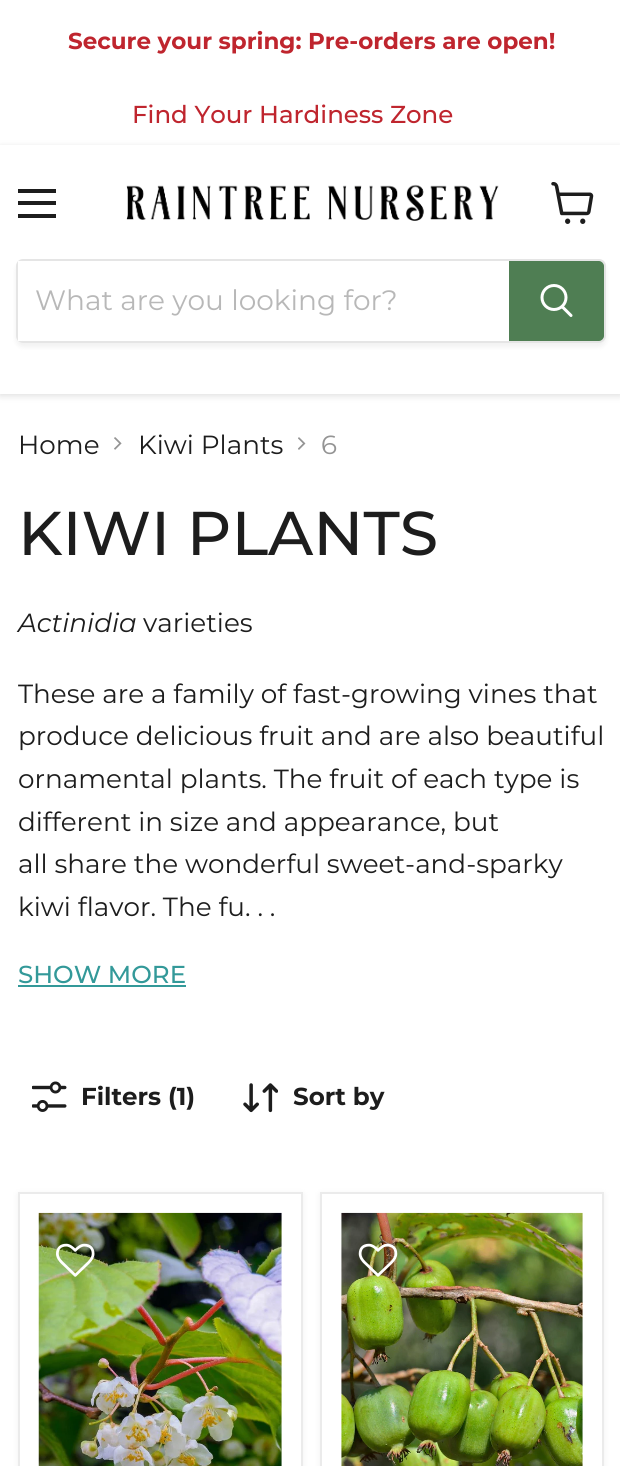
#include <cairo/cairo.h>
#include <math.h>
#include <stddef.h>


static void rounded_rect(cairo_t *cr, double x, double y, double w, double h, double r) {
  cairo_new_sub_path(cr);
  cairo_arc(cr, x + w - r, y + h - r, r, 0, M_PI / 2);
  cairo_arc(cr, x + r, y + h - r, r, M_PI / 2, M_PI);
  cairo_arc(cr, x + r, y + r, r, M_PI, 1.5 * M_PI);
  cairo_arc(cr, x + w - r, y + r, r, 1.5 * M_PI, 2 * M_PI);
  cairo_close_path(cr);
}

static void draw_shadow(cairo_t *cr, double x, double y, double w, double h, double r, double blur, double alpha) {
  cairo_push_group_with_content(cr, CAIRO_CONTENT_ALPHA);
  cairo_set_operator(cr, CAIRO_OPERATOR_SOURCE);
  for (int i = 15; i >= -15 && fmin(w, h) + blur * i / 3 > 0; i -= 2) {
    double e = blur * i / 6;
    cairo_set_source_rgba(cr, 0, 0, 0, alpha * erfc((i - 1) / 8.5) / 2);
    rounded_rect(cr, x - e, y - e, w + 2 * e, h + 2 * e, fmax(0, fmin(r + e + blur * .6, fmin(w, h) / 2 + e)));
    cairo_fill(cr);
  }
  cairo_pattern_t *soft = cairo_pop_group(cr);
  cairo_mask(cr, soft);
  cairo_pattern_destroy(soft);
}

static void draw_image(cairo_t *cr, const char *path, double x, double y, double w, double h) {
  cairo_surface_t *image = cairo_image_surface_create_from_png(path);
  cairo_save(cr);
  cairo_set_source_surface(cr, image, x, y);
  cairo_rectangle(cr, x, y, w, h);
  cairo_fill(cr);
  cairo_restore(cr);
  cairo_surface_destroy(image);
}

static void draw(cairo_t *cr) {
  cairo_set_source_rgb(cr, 1, 1, 1);
  cairo_paint(cr);
  cairo_set_source_rgb(cr, 128 / 255.0, 128 / 255.0, 128 / 255.0);
  draw_shadow(cr, 0, 147, 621, 249, 0, 3.5, 0.25);
  cairo_set_source_rgb(cr, 1, 1, 1);
  cairo_rectangle(cr, 0, 145, 620, 249);
  cairo_fill(cr);
  cairo_set_source_rgb(cr, 29 / 255.0, 29 / 255.0, 29 / 255.0);
  cairo_rectangle(cr, 18, 189, 38, 4);
  cairo_fill(cr);
  cairo_rectangle(cr, 18, 201, 38, 4);
  cairo_fill(cr);
  cairo_rectangle(cr, 18, 214, 38, 4);
  cairo_fill(cr);
  draw_image(cr, "images/1.png", 551, 182, 43, 42);
  draw_image(cr, "images/2.png", 126, 184, 373, 37);
  cairo_save(cr);
  cairo_set_fill_rule(cr, CAIRO_FILL_RULE_EVEN_ODD);
  cairo_new_path(cr);
  cairo_move_to(cr, 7, 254);
  cairo_line_to(cr, 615, 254);
  cairo_line_to(cr, 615, 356);
  cairo_line_to(cr, 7, 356);
  cairo_close_path(cr);
  cairo_move_to(cr, 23, 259);
  cairo_line_to(cr, 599, 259);
  cairo_curve_to(cr, 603, 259, 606, 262, 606, 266);
  cairo_line_to(cr, 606, 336);
  cairo_curve_to(cr, 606, 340, 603, 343, 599, 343);
  cairo_line_to(cr, 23, 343);
  cairo_curve_to(cr, 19, 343, 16, 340, 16, 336);
  cairo_line_to(cr, 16, 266);
  cairo_curve_to(cr, 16, 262, 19, 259, 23, 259);
  cairo_close_path(cr);
  cairo_clip(cr);
  cairo_set_source_rgb(cr, 128 / 255.0, 128 / 255.0, 128 / 255.0);
  draw_shadow(cr, 16, 263, 590, 84, 7, 2.5, 0.11);
  cairo_restore(cr);
  rounded_rect(cr, 17, 260, 588, 82, 6);
  cairo_set_source_rgba(cr, 128 / 255.0, 128 / 255.0, 128 / 255.0, 0.2);
  cairo_stroke(cr);
  cairo_set_source_rgb(cr, 1, 1, 1);
  cairo_rectangle(cr, 18, 261, 4, 80);
  cairo_fill(cr);
  cairo_set_source_rgb(cr, 79 / 255.0, 126 / 255.0, 83 / 255.0);
  cairo_new_path(cr);
  cairo_move_to(cr, 510, 262);
  cairo_line_to(cr, 599, 262);
  cairo_curve_to(cr, 601, 262, 603, 264, 603, 266);
  cairo_line_to(cr, 603, 336);
  cairo_curve_to(cr, 603, 338, 601, 340, 599, 340);
  cairo_line_to(cr, 510, 340);
  cairo_close_path(cr);
  cairo_fill_preserve(cr);
  cairo_stroke(cr);
  cairo_new_path(cr);
  cairo_move_to(cr, 571, 315.5);
  cairo_line_to(cr, 562.5, 307);
  cairo_set_source_rgb(cr, 1, 1, 1);
  cairo_set_line_width(cr, 3);
  cairo_set_line_cap(cr, CAIRO_LINE_CAP_ROUND);
  cairo_stroke(cr);
  cairo_arc(cr, 554, 297.5, 12, 0, 2 * M_PI);
  cairo_set_line_cap(cr, CAIRO_LINE_CAP_BUTT);
  cairo_stroke(cr);
  draw_image(cr, "images/3.png", 114, 437, 8, 13);
  draw_image(cr, "images/4.png", 298, 437, 8, 13);
  cairo_set_source_rgb(cr, 51 / 255.0, 153 / 255.0, 153 / 255.0);
  cairo_rectangle(cr, 18, 985, 168, 2);
  cairo_fill(cr);
  draw_image(cr, "images/5.png", 32, 1081, 35, 31);
  draw_image(cr, "images/6.png", 243, 1083, 35, 30);
  cairo_set_source_rgb(cr, 128 / 255.0, 128 / 255.0, 128 / 255.0);
  draw_shadow(cr, 18, 1194, 285, 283, 0, 3.5, 0.11);
  cairo_set_source_rgb(cr, 1, 1, 1);
  cairo_rectangle(cr, 19, 1193, 283, 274);
  cairo_fill_preserve(cr);
  cairo_set_source_rgb(cr, 235 / 255.0, 235 / 255.0, 235 / 255.0);
  cairo_set_line_width(cr, 2);
  cairo_stroke(cr);
  draw_image(cr, "images/7.png", 38, 1212, 244, 254);
  draw_image(cr, "images/8.png", 56, 1243, 39, 34);
  cairo_set_source_rgb(cr, 128 / 255.0, 128 / 255.0, 128 / 255.0);
  draw_shadow(cr, 320, 1194, 284, 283, 0, 3.5, 0.11);
  cairo_set_source_rgb(cr, 1, 1, 1);
  cairo_rectangle(cr, 321, 1193, 282, 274);
  cairo_fill_preserve(cr);
  cairo_set_source_rgb(cr, 235 / 255.0, 235 / 255.0, 235 / 255.0);
  cairo_stroke(cr);
  draw_image(cr, "images/9.png", 341, 1212, 242, 254);
  draw_image(cr, "images/10.png", 358, 1243, 40, 34);
  cairo_select_font_face(cr, "Montserrat", CAIRO_FONT_SLANT_NORMAL, CAIRO_FONT_WEIGHT_BOLD);
  cairo_set_font_size(cr, 23);
  cairo_set_source_rgb(cr, 191 / 255.0, 37 / 255.0, 46 / 255.0);
  cairo_move_to(cr, 68, 49);
  cairo_show_text(cr, "Secure your spring: Pre-orders are open!");
  cairo_select_font_face(cr, "Montserrat Medium", CAIRO_FONT_SLANT_NORMAL, CAIRO_FONT_WEIGHT_NORMAL);
  cairo_set_font_size(cr, 24.5);
  cairo_move_to(cr, 132, 123);
  cairo_show_text(cr, "Find Your Hardiness Zone");
  cairo_select_font_face(cr, "Montserrat", CAIRO_FONT_SLANT_NORMAL, CAIRO_FONT_WEIGHT_NORMAL);
  cairo_set_font_size(cr, 28);
  cairo_set_source_rgb(cr, 184 / 255.0, 184 / 255.0, 184 / 255.0);
  cairo_move_to(cr, 35, 310);
  cairo_show_text(cr, "What are you looking for?");
  cairo_set_font_size(cr, 26.25);
  cairo_set_source_rgb(cr, 29 / 255.0, 29 / 255.0, 29 / 255.0);
  cairo_move_to(cr, 18, 454);
  cairo_show_text(cr, "Home");
  cairo_move_to(cr, 138, 454);
  cairo_show_text(cr, "Kiwi Plants");
  cairo_set_source_rgb(cr, 148 / 255.0, 148 / 255.0, 148 / 255.0);
  cairo_move_to(cr, 321, 454);
  cairo_show_text(cr, "6");
  cairo_select_font_face(cr, "Montserrat Medium", CAIRO_FONT_SLANT_NORMAL, CAIRO_FONT_WEIGHT_NORMAL);
  cairo_set_font_size(cr, 61.75);
  cairo_set_source_rgb(cr, 29 / 255.0, 29 / 255.0, 29 / 255.0);
  cairo_move_to(cr, 18, 555);
  cairo_show_text(cr, "KIWI PLANTS");
  cairo_select_font_face(cr, "Montserrat", CAIRO_FONT_SLANT_ITALIC, CAIRO_FONT_WEIGHT_NORMAL);
  cairo_set_font_size(cr, 26.25);
  cairo_move_to(cr, 18, 632);
  cairo_show_text(cr, "Actinidia");
  cairo_select_font_face(cr, "Montserrat", CAIRO_FONT_SLANT_NORMAL, CAIRO_FONT_WEIGHT_NORMAL);
  cairo_move_to(cr, 143, 632);
  cairo_show_text(cr, "varieties");
  cairo_move_to(cr, 18, 703);
  cairo_show_text(cr, "These are a family of fast-growing vines that");
  cairo_move_to(cr, 18, 745);
  cairo_show_text(cr, "produce delicious fruit and are also beautiful");
  cairo_move_to(cr, 18, 788);
  cairo_show_text(cr, "ornamental plants. The fruit of each type is");
  cairo_move_to(cr, 18, 831);
  cairo_show_text(cr, "different in size and appearance, but");
  cairo_move_to(cr, 18, 873);
  cairo_show_text(cr, "all share the wonderful sweet-and-sparky");
  cairo_move_to(cr, 18, 916);
  cairo_show_text(cr, "kiwi flavor. The fu. . .");
  cairo_select_font_face(cr, "Montserrat Medium", CAIRO_FONT_SLANT_NORMAL, CAIRO_FONT_WEIGHT_NORMAL);
  cairo_set_font_size(cr, 24.5);
  cairo_set_source_rgb(cr, 51 / 255.0, 153 / 255.0, 153 / 255.0);
  cairo_move_to(cr, 18, 983);
  cairo_show_text(cr, "SHOW MORE");
  cairo_select_font_face(cr, "Montserrat", CAIRO_FONT_SLANT_NORMAL, CAIRO_FONT_WEIGHT_BOLD);
  cairo_set_source_rgb(cr, 29 / 255.0, 29 / 255.0, 29 / 255.0);
  cairo_move_to(cr, 81, 1105);
  cairo_show_text(cr, "Filters (1)");
  cairo_move_to(cr, 293, 1105);
  cairo_show_text(cr, "Sort by");
}

int main(void) {
  cairo_surface_t *surface = cairo_image_surface_create(CAIRO_FORMAT_RGB24, 620, 1466);
  cairo_t *cr = cairo_create(surface);
  cairo_font_options_t *options = cairo_font_options_create();
  cairo_font_options_set_hint_metrics(options, CAIRO_HINT_METRICS_OFF);
  cairo_font_options_set_hint_style(options, CAIRO_HINT_STYLE_NONE);
  cairo_set_font_options(cr, options);
  cairo_set_miter_limit(cr, 4);
  draw(cr);
  cairo_surface_write_to_png(surface, "out.png");
  cairo_font_options_destroy(options);
  cairo_destroy(cr);
  cairo_surface_destroy(surface);
  return 0;
}
